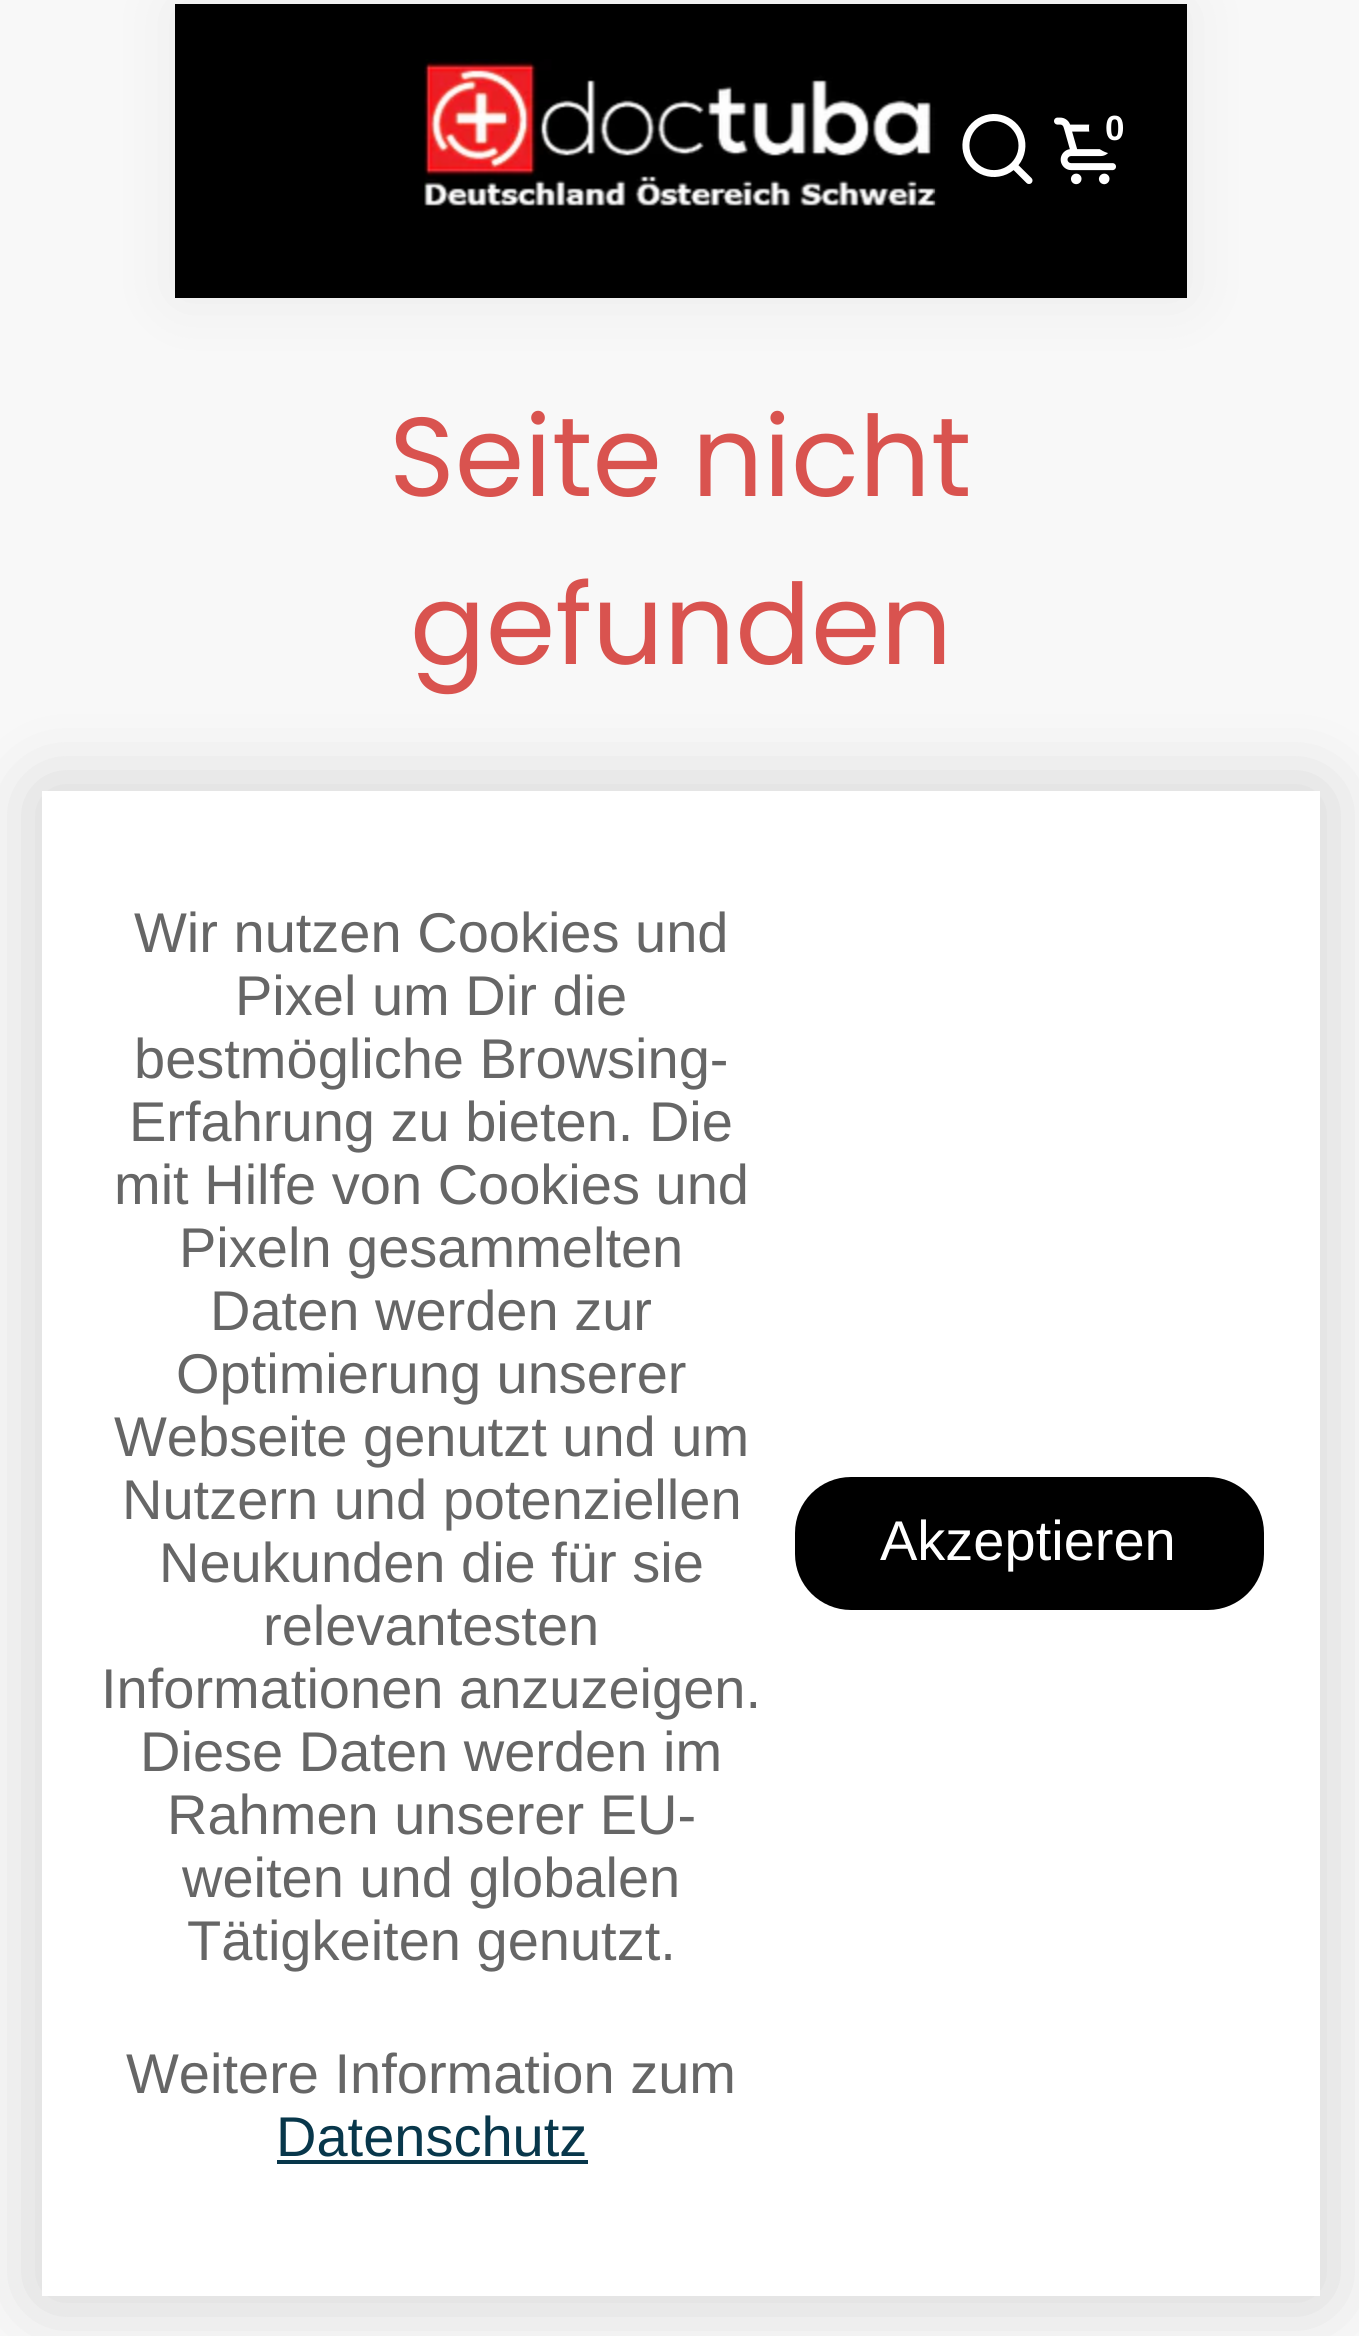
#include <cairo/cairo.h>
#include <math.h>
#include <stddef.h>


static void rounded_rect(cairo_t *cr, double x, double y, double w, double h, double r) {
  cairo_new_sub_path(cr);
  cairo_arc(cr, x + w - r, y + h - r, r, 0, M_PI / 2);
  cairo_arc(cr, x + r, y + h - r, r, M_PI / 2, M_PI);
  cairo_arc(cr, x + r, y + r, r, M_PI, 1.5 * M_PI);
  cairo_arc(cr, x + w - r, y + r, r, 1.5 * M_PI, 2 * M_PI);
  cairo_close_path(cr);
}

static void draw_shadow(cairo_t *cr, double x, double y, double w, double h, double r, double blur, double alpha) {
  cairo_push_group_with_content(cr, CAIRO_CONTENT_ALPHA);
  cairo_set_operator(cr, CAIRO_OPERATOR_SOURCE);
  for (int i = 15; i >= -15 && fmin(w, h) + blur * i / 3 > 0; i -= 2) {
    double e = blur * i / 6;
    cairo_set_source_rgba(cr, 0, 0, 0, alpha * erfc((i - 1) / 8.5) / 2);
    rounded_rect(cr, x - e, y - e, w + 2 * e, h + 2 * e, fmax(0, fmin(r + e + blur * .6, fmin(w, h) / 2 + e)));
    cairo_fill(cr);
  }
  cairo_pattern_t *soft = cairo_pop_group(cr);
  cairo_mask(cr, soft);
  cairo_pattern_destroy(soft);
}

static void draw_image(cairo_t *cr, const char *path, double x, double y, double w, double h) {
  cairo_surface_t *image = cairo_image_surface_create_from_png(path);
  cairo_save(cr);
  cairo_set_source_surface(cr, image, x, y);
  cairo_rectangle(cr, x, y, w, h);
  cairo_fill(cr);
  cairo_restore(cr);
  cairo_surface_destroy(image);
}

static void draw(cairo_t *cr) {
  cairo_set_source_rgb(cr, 248 / 255.0, 248 / 255.0, 248 / 255.0);
  cairo_paint(cr);
  cairo_set_source_rgb(cr, 0, 0, 0);
  draw_shadow(cr, 175, 4, 1012, 294, 0, 35, 0.06);
  cairo_set_source_rgb(cr, 0, 0, 0);
  cairo_rectangle(cr, 175, 4, 1012, 294);
  cairo_fill(cr);
  draw_image(cr, "images/1.png", 424, 59, 513, 150);
  draw_image(cr, "images/2.png", 962, 114, 71, 70);
  draw_image(cr, "images/3.png", 1054, 117, 62, 68);
  cairo_arc(cr, 1115, 128, 26, 0, 2 * M_PI);
  cairo_fill(cr);
  cairo_set_source_rgb(cr, 0, 0, 0);
  draw_shadow(cr, 42, 791, 1278, 1505, 0, 42, 0.16);
  cairo_set_source_rgb(cr, 1, 1, 1);
  cairo_rectangle(cr, 42, 791, 1278, 1505);
  cairo_fill(cr);
  cairo_set_source_rgb(cr, 8 / 255.0, 55 / 255.0, 75 / 255.0);
  cairo_rectangle(cr, 277, 2160, 311, 4);
  cairo_fill(cr);
  cairo_set_source_rgb(cr, 0, 0, 0);
  rounded_rect(cr, 795, 1477, 469, 133, 56);
  cairo_fill(cr);
  cairo_select_font_face(cr, "Liberation Sans", CAIRO_FONT_SLANT_NORMAL, CAIRO_FONT_WEIGHT_BOLD);
  cairo_set_font_size(cr, 35);
  cairo_set_source_rgb(cr, 1, 1, 1);
  cairo_move_to(cr, 1105, 140);
  cairo_show_text(cr, "0");
  cairo_select_font_face(cr, "Poppins", CAIRO_FONT_SLANT_NORMAL, CAIRO_FONT_WEIGHT_NORMAL);
  cairo_set_font_size(cr, 112);
  cairo_set_source_rgb(cr, 217 / 255.0, 83 / 255.0, 79 / 255.0);
  cairo_move_to(cr, 389, 496);
  cairo_show_text(cr, "Seite nicht");
  cairo_move_to(cr, 410, 664);
  cairo_show_text(cr, "gefunden");
  cairo_select_font_face(cr, "Liberation Sans", CAIRO_FONT_SLANT_NORMAL, CAIRO_FONT_WEIGHT_NORMAL);
  cairo_set_font_size(cr, 56);
  cairo_set_source_rgb(cr, 102 / 255.0, 102 / 255.0, 102 / 255.0);
  cairo_move_to(cr, 134, 952);
  cairo_show_text(cr, "Wir nutzen Cookies und");
  cairo_move_to(cr, 235, 1015);
  cairo_show_text(cr, "Pixel um Dir die");
  cairo_move_to(cr, 134, 1078);
  cairo_show_text(cr, "bestmögliche Browsing-");
  cairo_move_to(cr, 129, 1141);
  cairo_show_text(cr, "Erfahrung zu bieten. Die");
  cairo_move_to(cr, 114, 1204);
  cairo_show_text(cr, "mit Hilfe von Cookies und");
  cairo_move_to(cr, 179, 1267);
  cairo_show_text(cr, "Pixeln gesammelten");
  cairo_move_to(cr, 210, 1330);
  cairo_show_text(cr, "Daten werden zur");
  cairo_move_to(cr, 176, 1393);
  cairo_show_text(cr, "Optimierung unserer");
  cairo_move_to(cr, 114, 1456);
  cairo_show_text(cr, "Webseite genutzt und um");
  cairo_move_to(cr, 122, 1519);
  cairo_show_text(cr, "Nutzern und potenziellen");
  cairo_move_to(cr, 159, 1582);
  cairo_show_text(cr, "Neukunden die für sie");
  cairo_move_to(cr, 263, 1645);
  cairo_show_text(cr, "relevantesten");
  cairo_move_to(cr, 101, 1708);
  cairo_show_text(cr, "Informationen anzuzeigen.");
  cairo_move_to(cr, 140, 1771);
  cairo_show_text(cr, "Diese Daten werden im");
  cairo_move_to(cr, 167, 1834);
  cairo_show_text(cr, "Rahmen unserer EU-");
  cairo_move_to(cr, 182, 1897);
  cairo_show_text(cr, "weiten und globalen");
  cairo_move_to(cr, 187, 1960);
  cairo_show_text(cr, "Tätigkeiten genutzt.");
  cairo_move_to(cr, 126, 2093);
  cairo_show_text(cr, "Weitere Information zum");
  cairo_set_source_rgb(cr, 8 / 255.0, 55 / 255.0, 75 / 255.0);
  cairo_move_to(cr, 276, 2156);
  cairo_show_text(cr, "Datenschutz");
  cairo_set_source_rgb(cr, 1, 1, 1);
  cairo_move_to(cr, 880, 1560);
  cairo_show_text(cr, "Akzeptieren");
}

int main(void) {
  cairo_surface_t *surface = cairo_image_surface_create(CAIRO_FORMAT_RGB24, 1359, 2336);
  cairo_t *cr = cairo_create(surface);
  cairo_font_options_t *options = cairo_font_options_create();
  cairo_font_options_set_hint_metrics(options, CAIRO_HINT_METRICS_OFF);
  cairo_font_options_set_hint_style(options, CAIRO_HINT_STYLE_NONE);
  cairo_set_font_options(cr, options);
  cairo_set_miter_limit(cr, 4);
  draw(cr);
  cairo_surface_write_to_png(surface, "out.png");
  cairo_font_options_destroy(options);
  cairo_destroy(cr);
  cairo_surface_destroy(surface);
  return 0;
}
